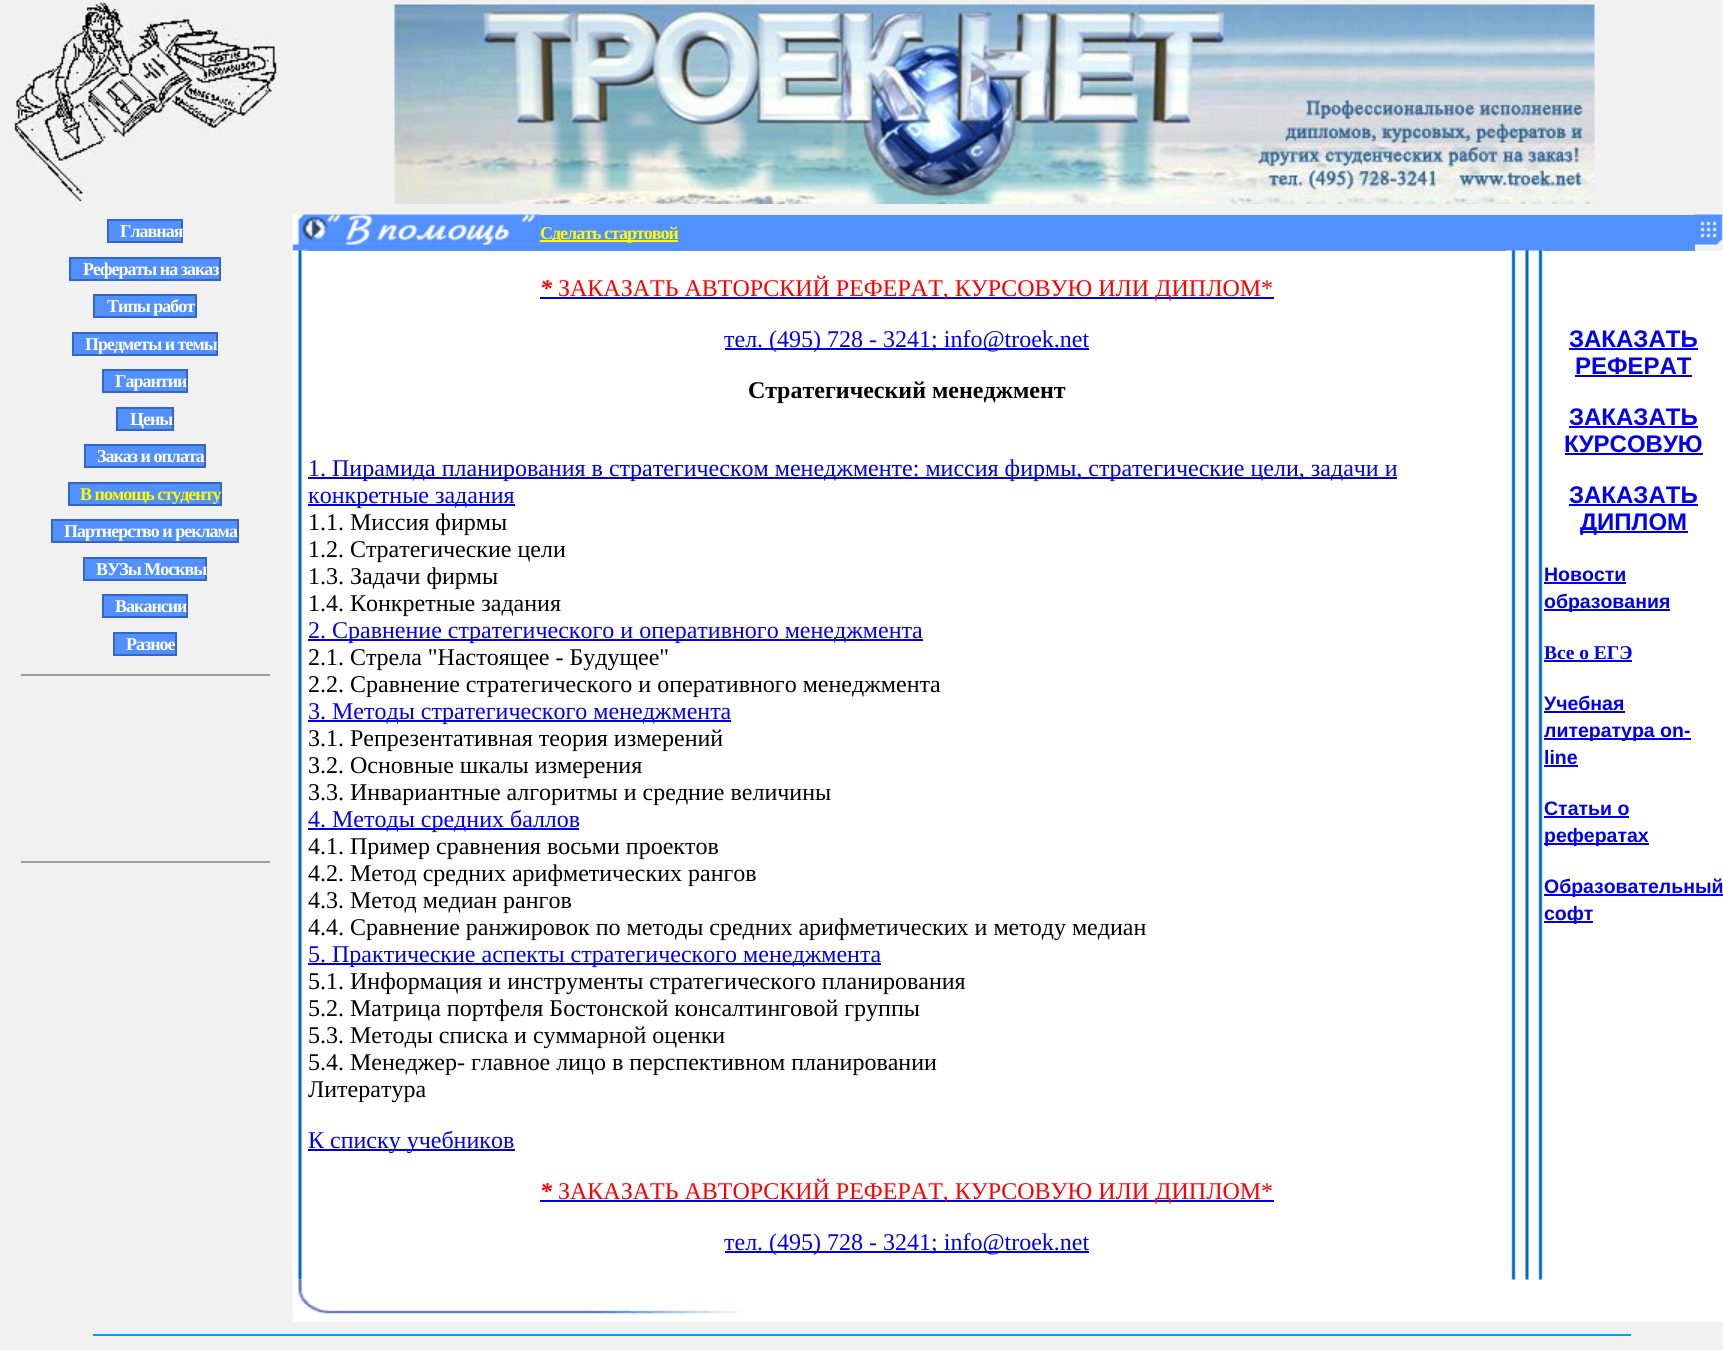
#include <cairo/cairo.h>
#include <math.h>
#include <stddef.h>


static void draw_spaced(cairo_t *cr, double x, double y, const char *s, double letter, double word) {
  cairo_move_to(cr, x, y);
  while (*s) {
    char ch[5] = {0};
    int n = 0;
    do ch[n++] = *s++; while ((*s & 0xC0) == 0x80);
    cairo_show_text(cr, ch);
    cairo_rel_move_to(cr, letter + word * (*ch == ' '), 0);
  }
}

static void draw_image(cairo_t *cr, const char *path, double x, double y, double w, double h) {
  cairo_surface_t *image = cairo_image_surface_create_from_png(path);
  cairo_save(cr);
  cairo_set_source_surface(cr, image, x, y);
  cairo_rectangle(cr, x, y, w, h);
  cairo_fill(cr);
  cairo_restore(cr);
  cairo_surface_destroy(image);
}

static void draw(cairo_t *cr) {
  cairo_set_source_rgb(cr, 241 / 255.0, 241 / 255.0, 241 / 255.0);
  cairo_paint(cr);
  draw_image(cr, "images/1.png", 12, 0, 265, 204);
  cairo_set_source_rgb(cr, 82 / 255.0, 143 / 255.0, 1);
  cairo_rectangle(cr, 108, 220, 74, 22);
  cairo_fill_preserve(cr);
  cairo_set_source_rgb(cr, 51 / 255.0, 102 / 255.0, 204 / 255.0);
  cairo_stroke(cr);
  cairo_set_source_rgb(cr, 82 / 255.0, 143 / 255.0, 1);
  cairo_rectangle(cr, 70, 258, 150, 22);
  cairo_fill_preserve(cr);
  cairo_set_source_rgb(cr, 51 / 255.0, 102 / 255.0, 204 / 255.0);
  cairo_stroke(cr);
  cairo_set_source_rgb(cr, 82 / 255.0, 143 / 255.0, 1);
  cairo_rectangle(cr, 94, 295, 102, 22);
  cairo_fill_preserve(cr);
  cairo_set_source_rgb(cr, 51 / 255.0, 102 / 255.0, 204 / 255.0);
  cairo_stroke(cr);
  cairo_set_source_rgb(cr, 82 / 255.0, 143 / 255.0, 1);
  cairo_rectangle(cr, 73, 333, 144, 22);
  cairo_fill_preserve(cr);
  cairo_set_source_rgb(cr, 51 / 255.0, 102 / 255.0, 204 / 255.0);
  cairo_stroke(cr);
  cairo_set_source_rgb(cr, 82 / 255.0, 143 / 255.0, 1);
  cairo_rectangle(cr, 103, 370, 84, 22);
  cairo_fill_preserve(cr);
  cairo_set_source_rgb(cr, 51 / 255.0, 102 / 255.0, 204 / 255.0);
  cairo_stroke(cr);
  cairo_set_source_rgb(cr, 82 / 255.0, 143 / 255.0, 1);
  cairo_rectangle(cr, 117, 408, 56, 22);
  cairo_fill_preserve(cr);
  cairo_set_source_rgb(cr, 51 / 255.0, 102 / 255.0, 204 / 255.0);
  cairo_stroke(cr);
  cairo_set_source_rgb(cr, 82 / 255.0, 143 / 255.0, 1);
  cairo_rectangle(cr, 85, 445, 120, 22);
  cairo_fill_preserve(cr);
  cairo_set_source_rgb(cr, 51 / 255.0, 102 / 255.0, 204 / 255.0);
  cairo_stroke(cr);
  cairo_set_source_rgb(cr, 82 / 255.0, 143 / 255.0, 1);
  cairo_rectangle(cr, 69, 483, 152, 22);
  cairo_fill_preserve(cr);
  cairo_set_source_rgb(cr, 51 / 255.0, 102 / 255.0, 204 / 255.0);
  cairo_stroke(cr);
  cairo_set_source_rgb(cr, 82 / 255.0, 143 / 255.0, 1);
  cairo_rectangle(cr, 52, 520, 186, 22);
  cairo_fill_preserve(cr);
  cairo_set_source_rgb(cr, 51 / 255.0, 102 / 255.0, 204 / 255.0);
  cairo_stroke(cr);
  cairo_set_source_rgb(cr, 82 / 255.0, 143 / 255.0, 1);
  cairo_rectangle(cr, 84, 558, 122, 22);
  cairo_fill_preserve(cr);
  cairo_set_source_rgb(cr, 51 / 255.0, 102 / 255.0, 204 / 255.0);
  cairo_stroke(cr);
  cairo_set_source_rgb(cr, 82 / 255.0, 143 / 255.0, 1);
  cairo_rectangle(cr, 103, 595, 84, 22);
  cairo_fill_preserve(cr);
  cairo_set_source_rgb(cr, 51 / 255.0, 102 / 255.0, 204 / 255.0);
  cairo_stroke(cr);
  cairo_set_source_rgb(cr, 82 / 255.0, 143 / 255.0, 1);
  cairo_rectangle(cr, 114, 633, 62, 22);
  cairo_fill_preserve(cr);
  cairo_set_source_rgb(cr, 51 / 255.0, 102 / 255.0, 204 / 255.0);
  cairo_stroke(cr);
  cairo_set_source_rgb(cr, 159 / 255.0, 159 / 255.0, 159 / 255.0);
  cairo_rectangle(cr, 21, 674, 251, 2);
  cairo_fill(cr);
  cairo_set_source_rgb(cr, 238 / 255.0, 238 / 255.0, 238 / 255.0);
  cairo_rectangle(cr, 270, 674, 2, 2);
  cairo_fill(cr);
  cairo_set_source_rgb(cr, 159 / 255.0, 159 / 255.0, 159 / 255.0);
  cairo_rectangle(cr, 21, 861, 251, 2);
  cairo_fill(cr);
  cairo_set_source_rgb(cr, 238 / 255.0, 238 / 255.0, 238 / 255.0);
  cairo_rectangle(cr, 270, 861, 2, 2);
  cairo_fill(cr);
  draw_image(cr, "images/2.png", 394, 4, 1201, 200);
  cairo_set_source_rgb(cr, 82 / 255.0, 143 / 255.0, 1);
  cairo_rectangle(cr, 293, 244, 247, 7);
  cairo_fill(cr);
  draw_image(cr, "images/3.png", 292, 214, 248, 31);
  cairo_rectangle(cr, 540, 215, 1155, 36);
  cairo_fill(cr);
  cairo_set_source_rgb(cr, 1, 252 / 255.0, 0);
  cairo_rectangle(cr, 540, 240, 138, 2);
  cairo_fill(cr);
  draw_image(cr, "images/4.png", 1695, 214, 28, 31);
  cairo_set_source_rgb(cr, 1, 1, 1);
  cairo_rectangle(cr, 293, 251, 1430, 1071);
  cairo_fill(cr);
  draw_image(cr, "images/5.png", 292, 250, 16, 1030);
  cairo_set_source_rgb(cr, 0, 0, 238 / 255.0);
  cairo_rectangle(cr, 540, 297, 734, 2);
  cairo_fill(cr);
  cairo_rectangle(cr, 725, 348, 364, 2);
  cairo_fill(cr);
  cairo_rectangle(cr, 308, 477, 1089, 2);
  cairo_fill(cr);
  cairo_rectangle(cr, 308, 504, 207, 2);
  cairo_fill(cr);
  cairo_rectangle(cr, 308, 639, 615, 2);
  cairo_fill(cr);
  cairo_rectangle(cr, 308, 720, 423, 2);
  cairo_fill(cr);
  cairo_rectangle(cr, 308, 828, 271, 2);
  cairo_fill(cr);
  cairo_rectangle(cr, 308, 963, 573, 2);
  cairo_fill(cr);
  cairo_rectangle(cr, 308, 1149, 207, 2);
  cairo_fill(cr);
  cairo_rectangle(cr, 540, 1200, 734, 2);
  cairo_fill(cr);
  cairo_rectangle(cr, 725, 1251, 364, 2);
  cairo_fill(cr);
  draw_image(cr, "images/6.png", 1506, 250, 38, 1030);
  cairo_rectangle(cr, 1569, 348, 129, 2);
  cairo_fill(cr);
  cairo_rectangle(cr, 1575, 375, 117, 2);
  cairo_fill(cr);
  cairo_rectangle(cr, 1569, 426, 129, 2);
  cairo_fill(cr);
  cairo_rectangle(cr, 1565, 453, 138, 2);
  cairo_fill(cr);
  cairo_rectangle(cr, 1569, 504, 129, 2);
  cairo_fill(cr);
  cairo_rectangle(cr, 1580, 531, 108, 2);
  cairo_fill(cr);
  cairo_rectangle(cr, 1544, 582, 82, 2);
  cairo_fill(cr);
  cairo_rectangle(cr, 1544, 609, 126, 2);
  cairo_fill(cr);
  cairo_rectangle(cr, 1544, 660, 88, 2);
  cairo_fill(cr);
  cairo_rectangle(cr, 1544, 711, 81, 2);
  cairo_fill(cr);
  cairo_rectangle(cr, 1544, 738, 147, 2);
  cairo_fill(cr);
  cairo_rectangle(cr, 1544, 765, 34, 2);
  cairo_fill(cr);
  cairo_rectangle(cr, 1544, 816, 85, 2);
  cairo_fill(cr);
  cairo_rectangle(cr, 1544, 843, 105, 2);
  cairo_fill(cr);
  cairo_rectangle(cr, 1544, 894, 179, 2);
  cairo_fill(cr);
  cairo_rectangle(cr, 1544, 921, 49, 2);
  cairo_fill(cr);
  draw_image(cr, "images/7.png", 292, 1279, 449, 36);
  cairo_set_source_rgb(cr, 0, 153 / 255.0, 1);
  cairo_rectangle(cr, 93, 1334, 1538, 2);
  cairo_fill(cr);
  cairo_select_font_face(cr, "Liberation Serif", CAIRO_FONT_SLANT_NORMAL, CAIRO_FONT_WEIGHT_BOLD);
  cairo_set_font_size(cr, 18);
  cairo_set_source_rgb(cr, 1, 1, 1);
  draw_spaced(cr, 120, 237, "Главная", -1, 0);
  draw_spaced(cr, 83, 275, "Рефераты на заказ", -1, 0);
  draw_spaced(cr, 107, 312, "Типы работ", -1, 0);
  draw_spaced(cr, 85, 350, "Предметы и темы", -1, 0);
  draw_spaced(cr, 115, 387, "Гарантии", -1, 0);
  draw_spaced(cr, 130, 425, "Цены", -1, 0);
  draw_spaced(cr, 97, 462, "Заказ и оплата", -1, 0);
  cairo_set_source_rgb(cr, 1, 252 / 255.0, 0);
  draw_spaced(cr, 80, 500, "В помощь студенту", -1, 0);
  cairo_set_source_rgb(cr, 1, 1, 1);
  draw_spaced(cr, 64, 537, "Партнерство и реклама", -1, 0);
  draw_spaced(cr, 96, 575, "ВУЗы Москвы", -1, 0);
  draw_spaced(cr, 115, 612, "Вакансии", -1, 0);
  draw_spaced(cr, 126, 650, "Разное", -1, 0);
  cairo_set_source_rgb(cr, 1, 252 / 255.0, 0);
  draw_spaced(cr, 540, 239, "Сделать стартовой", -1, 0);
  cairo_select_font_face(cr, "Liberation Serif", CAIRO_FONT_SLANT_ITALIC, CAIRO_FONT_WEIGHT_BOLD);
  cairo_set_font_size(cr, 24);
  cairo_set_source_rgb(cr, 1, 0, 0);
  cairo_move_to(cr, 540, 296);
  cairo_show_text(cr, "*");
  cairo_select_font_face(cr, "Liberation Serif", CAIRO_FONT_SLANT_NORMAL, CAIRO_FONT_WEIGHT_NORMAL);
  cairo_move_to(cr, 558, 296);
  cairo_show_text(cr, "ЗАКАЗАТЬ АВТОРСКИЙ РЕФЕРАТ, КУРСОВУЮ ИЛИ ДИПЛОМ*");
  cairo_set_source_rgb(cr, 0, 0, 238 / 255.0);
  cairo_move_to(cr, 724, 347);
  cairo_show_text(cr, "тел. (495) 728 - 3241; info@troek.net");
  cairo_select_font_face(cr, "Liberation Serif", CAIRO_FONT_SLANT_NORMAL, CAIRO_FONT_WEIGHT_BOLD);
  cairo_set_source_rgb(cr, 0, 0, 0);
  cairo_move_to(cr, 748, 398);
  cairo_show_text(cr, "Стратегический менеджмент");
  cairo_select_font_face(cr, "Liberation Serif", CAIRO_FONT_SLANT_NORMAL, CAIRO_FONT_WEIGHT_NORMAL);
  cairo_set_source_rgb(cr, 0, 0, 238 / 255.0);
  cairo_move_to(cr, 308, 476);
  cairo_show_text(cr, "1. Пирамида планирования в стратегическом менеджменте: миссия фирмы, стратегические цели, задачи и");
  cairo_move_to(cr, 308, 503);
  cairo_show_text(cr, "конкретные задания");
  cairo_set_source_rgb(cr, 0, 0, 0);
  cairo_move_to(cr, 308, 530);
  cairo_show_text(cr, "1.1. Миссия фирмы");
  cairo_move_to(cr, 308, 557);
  cairo_show_text(cr, "1.2. Стратегические цели");
  cairo_move_to(cr, 308, 584);
  cairo_show_text(cr, "1.3. Задачи фирмы");
  cairo_move_to(cr, 308, 611);
  cairo_show_text(cr, "1.4. Конкретные задания");
  cairo_set_source_rgb(cr, 0, 0, 238 / 255.0);
  cairo_move_to(cr, 308, 638);
  cairo_show_text(cr, "2. Сравнение стратегического и оперативного менеджмента");
  cairo_set_source_rgb(cr, 0, 0, 0);
  cairo_move_to(cr, 308, 665);
  cairo_show_text(cr, "2.1. Стрела \"Настоящее - Будущее\"");
  cairo_move_to(cr, 308, 692);
  cairo_show_text(cr, "2.2. Сравнение стратегического и оперативного менеджмента");
  cairo_set_source_rgb(cr, 0, 0, 238 / 255.0);
  cairo_move_to(cr, 308, 719);
  cairo_show_text(cr, "3. Методы стратегического менеджмента");
  cairo_set_source_rgb(cr, 0, 0, 0);
  cairo_move_to(cr, 308, 746);
  cairo_show_text(cr, "3.1. Репрезентативная теория измерений");
  cairo_move_to(cr, 308, 773);
  cairo_show_text(cr, "3.2. Основные шкалы измерения");
  cairo_move_to(cr, 308, 800);
  cairo_show_text(cr, "3.3. Инвариантные алгоритмы и средние величины");
  cairo_set_source_rgb(cr, 0, 0, 238 / 255.0);
  cairo_move_to(cr, 308, 827);
  cairo_show_text(cr, "4. Методы средних баллов");
  cairo_set_source_rgb(cr, 0, 0, 0);
  cairo_move_to(cr, 308, 854);
  cairo_show_text(cr, "4.1. Пример сравнения восьми проектов");
  cairo_move_to(cr, 308, 881);
  cairo_show_text(cr, "4.2. Метод средних арифметических рангов");
  cairo_move_to(cr, 308, 908);
  cairo_show_text(cr, "4.3. Метод медиан рангов");
  cairo_move_to(cr, 308, 935);
  cairo_show_text(cr, "4.4. Сравнение ранжировок по методы средних арифметических и методу медиан");
  cairo_set_source_rgb(cr, 0, 0, 238 / 255.0);
  cairo_move_to(cr, 308, 962);
  cairo_show_text(cr, "5. Практические аспекты стратегического менеджмента");
  cairo_set_source_rgb(cr, 0, 0, 0);
  cairo_move_to(cr, 308, 989);
  cairo_show_text(cr, "5.1. Информация и инструменты стратегического планирования");
  cairo_move_to(cr, 308, 1016);
  cairo_show_text(cr, "5.2. Матрица портфеля Бостонской консалтинговой группы");
  cairo_move_to(cr, 308, 1043);
  cairo_show_text(cr, "5.3. Методы списка и суммарной оценки");
  cairo_move_to(cr, 308, 1070);
  cairo_show_text(cr, "5.4. Менеджер- главное лицо в перспективном планировании");
  cairo_move_to(cr, 308, 1097);
  cairo_show_text(cr, "Литература");
  cairo_set_source_rgb(cr, 0, 0, 238 / 255.0);
  cairo_move_to(cr, 308, 1148);
  cairo_show_text(cr, "К списку учебников");
  cairo_select_font_face(cr, "Liberation Serif", CAIRO_FONT_SLANT_ITALIC, CAIRO_FONT_WEIGHT_BOLD);
  cairo_set_source_rgb(cr, 1, 0, 0);
  cairo_move_to(cr, 540, 1199);
  cairo_show_text(cr, "*");
  cairo_select_font_face(cr, "Liberation Serif", CAIRO_FONT_SLANT_NORMAL, CAIRO_FONT_WEIGHT_NORMAL);
  cairo_move_to(cr, 558, 1199);
  cairo_show_text(cr, "ЗАКАЗАТЬ АВТОРСКИЙ РЕФЕРАТ, КУРСОВУЮ ИЛИ ДИПЛОМ*");
  cairo_set_source_rgb(cr, 0, 0, 238 / 255.0);
  cairo_move_to(cr, 724, 1250);
  cairo_show_text(cr, "тел. (495) 728 - 3241; info@troek.net");
  cairo_select_font_face(cr, "Liberation Sans", CAIRO_FONT_SLANT_NORMAL, CAIRO_FONT_WEIGHT_BOLD);
  cairo_move_to(cr, 1569, 347);
  cairo_show_text(cr, "ЗАКАЗАТЬ");
  cairo_move_to(cr, 1575, 374);
  cairo_show_text(cr, "РЕФЕРАТ");
  cairo_move_to(cr, 1569, 425);
  cairo_show_text(cr, "ЗАКАЗАТЬ");
  cairo_move_to(cr, 1564, 452);
  cairo_show_text(cr, "КУРСОВУЮ");
  cairo_move_to(cr, 1569, 503);
  cairo_show_text(cr, "ЗАКАЗАТЬ");
  cairo_move_to(cr, 1580, 530);
  cairo_show_text(cr, "ДИПЛОМ");
  cairo_set_font_size(cr, 19.5);
  cairo_move_to(cr, 1544, 581);
  cairo_show_text(cr, "Новости");
  cairo_move_to(cr, 1544, 608);
  cairo_show_text(cr, "образования");
  cairo_select_font_face(cr, "Liberation Serif", CAIRO_FONT_SLANT_NORMAL, CAIRO_FONT_WEIGHT_BOLD);
  cairo_move_to(cr, 1544, 659);
  cairo_show_text(cr, "Все о ЕГЭ");
  cairo_select_font_face(cr, "Liberation Sans", CAIRO_FONT_SLANT_NORMAL, CAIRO_FONT_WEIGHT_BOLD);
  cairo_move_to(cr, 1544, 710);
  cairo_show_text(cr, "Учебная");
  cairo_move_to(cr, 1544, 737);
  cairo_show_text(cr, "литература on-");
  cairo_move_to(cr, 1544, 764);
  cairo_show_text(cr, "line");
  cairo_move_to(cr, 1544, 815);
  cairo_show_text(cr, "Статьи о");
  cairo_move_to(cr, 1544, 842);
  cairo_show_text(cr, "рефератах");
  cairo_move_to(cr, 1544, 893);
  cairo_show_text(cr, "Образовательный");
  cairo_move_to(cr, 1544, 920);
  cairo_show_text(cr, "софт");
}

int main(void) {
  cairo_surface_t *surface = cairo_image_surface_create(CAIRO_FORMAT_RGB24, 1723, 1350);
  cairo_t *cr = cairo_create(surface);
  cairo_font_options_t *options = cairo_font_options_create();
  cairo_font_options_set_hint_metrics(options, CAIRO_HINT_METRICS_OFF);
  cairo_font_options_set_hint_style(options, CAIRO_HINT_STYLE_NONE);
  cairo_set_font_options(cr, options);
  cairo_set_miter_limit(cr, 4);
  draw(cr);
  cairo_surface_write_to_png(surface, "out.png");
  cairo_font_options_destroy(options);
  cairo_destroy(cr);
  cairo_surface_destroy(surface);
  return 0;
}
